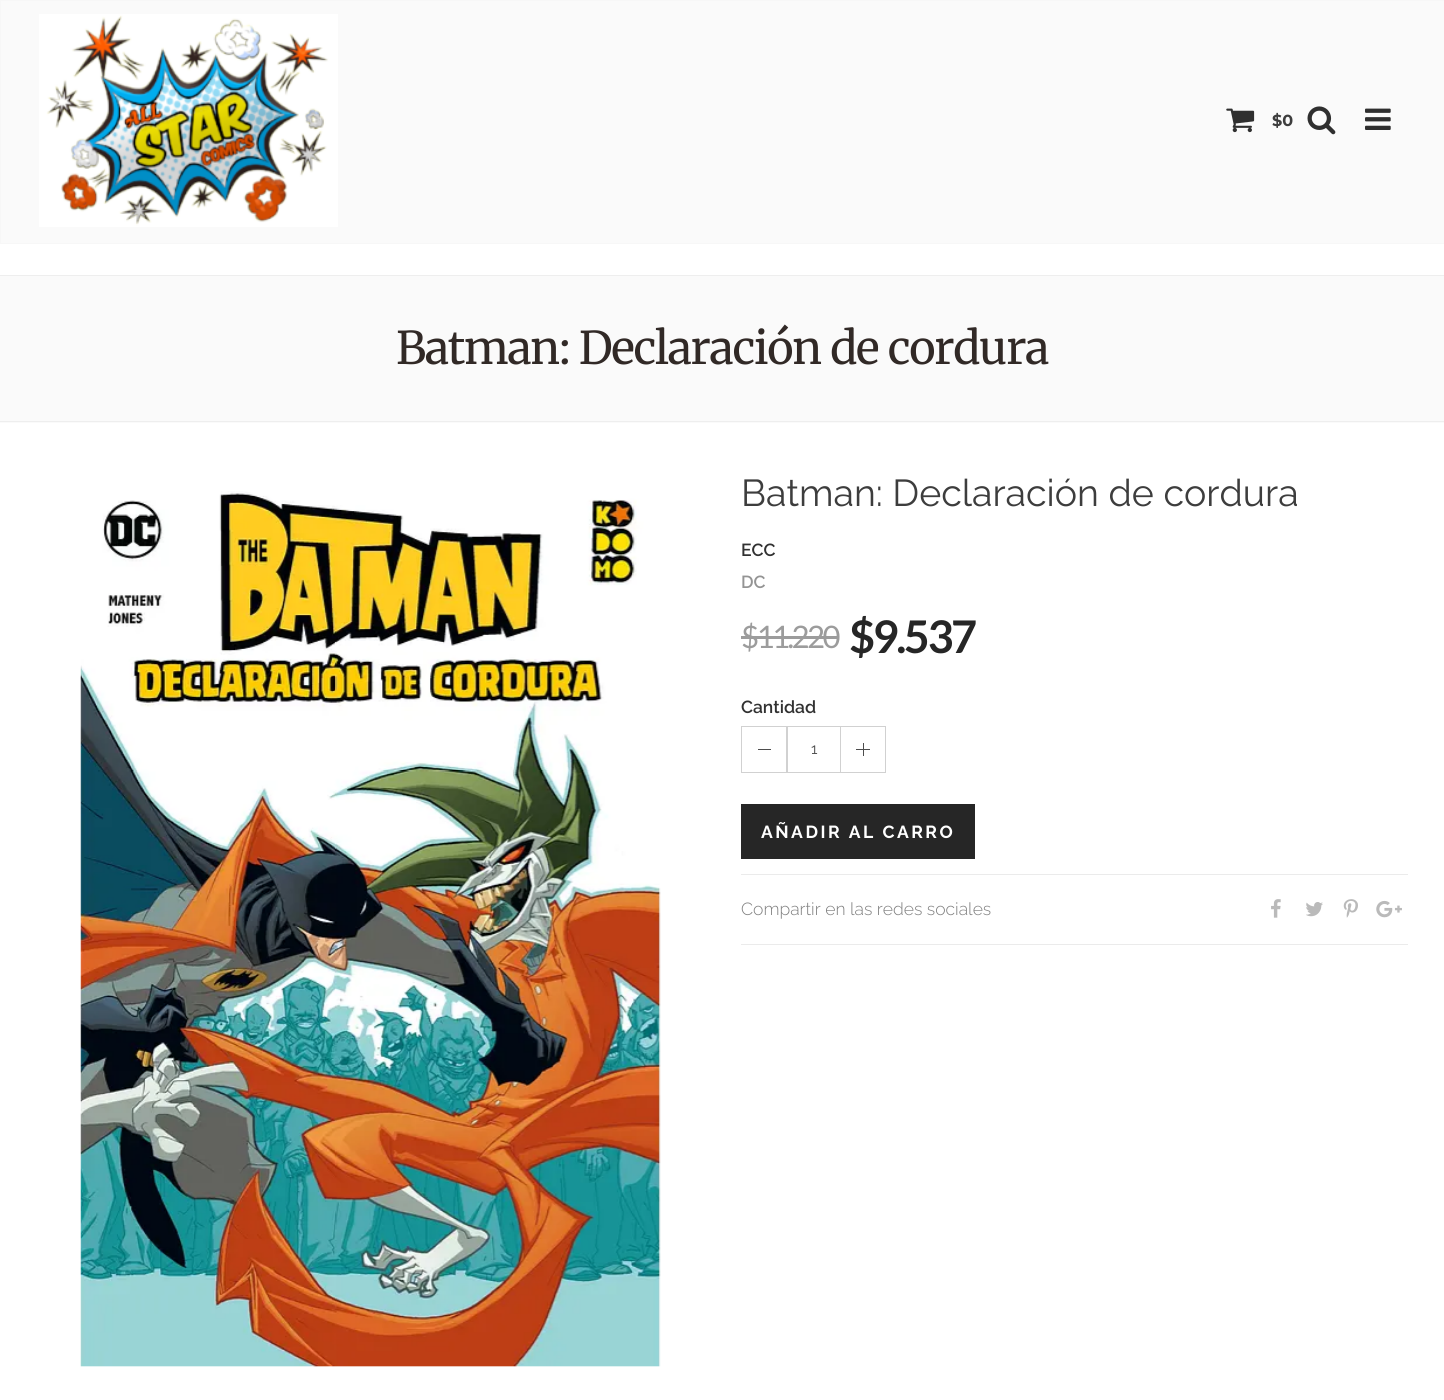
#include <cairo/cairo.h>
#include <math.h>
#include <stddef.h>


static void draw_spaced(cairo_t *cr, double x, double y, const char *s, double letter, double word) {
  cairo_move_to(cr, x, y);
  while (*s) {
    char ch[5] = {0};
    int n = 0;
    do ch[n++] = *s++; while ((*s & 0xC0) == 0x80);
    cairo_show_text(cr, ch);
    cairo_rel_move_to(cr, letter + word * (*ch == ' '), 0);
  }
}

static void draw_image(cairo_t *cr, const char *path, double x, double y, double w, double h) {
  cairo_surface_t *image = cairo_image_surface_create_from_png(path);
  cairo_save(cr);
  cairo_set_source_surface(cr, image, x, y);
  cairo_rectangle(cr, x, y, w, h);
  cairo_fill(cr);
  cairo_restore(cr);
  cairo_surface_destroy(image);
}

static void draw(cairo_t *cr) {
  cairo_set_source_rgb(cr, 1, 1, 1);
  cairo_paint(cr);
  cairo_set_source_rgb(cr, 250 / 255.0, 250 / 255.0, 250 / 255.0);
  cairo_rectangle(cr, 0.5, 0.5, 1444, 243);
  cairo_fill_preserve(cr);
  cairo_set_source_rgb(cr, 247 / 255.0, 247 / 255.0, 247 / 255.0);
  cairo_set_line_width(cr, 1);
  cairo_stroke(cr);
  draw_image(cr, "images/1.png", 39, 14, 299, 213);
  draw_image(cr, "images/2.png", 1226, 108, 29, 25);
  draw_image(cr, "images/3.png", 1307, 106, 29, 29);
  draw_image(cr, "images/4.png", 1365, 108, 26, 22);
  cairo_set_source_rgb(cr, 250 / 255.0, 250 / 255.0, 250 / 255.0);
  cairo_rectangle(cr, 0, 276, 1444, 147);
  cairo_fill(cr);
  cairo_set_source_rgb(cr, 238 / 255.0, 238 / 255.0, 238 / 255.0);
  cairo_rectangle(cr, 0, 275, 1444, 1);
  cairo_fill(cr);
  cairo_rectangle(cr, 0, 421, 1444, 1);
  cairo_fill(cr);
  draw_image(cr, "images/5.png", 80, 491, 581, 876);
  cairo_set_source_rgb(cr, 156 / 255.0, 156 / 255.0, 156 / 255.0);
  cairo_rectangle(cr, 741, 636, 98, 3);
  cairo_fill(cr);
  cairo_rectangle(cr, 741.5, 726.5, 46, 46);
  cairo_set_source_rgb(cr, 209 / 255.0, 209 / 255.0, 209 / 255.0);
  cairo_stroke(cr);
  cairo_set_source_rgb(cr, 77 / 255.0, 77 / 255.0, 77 / 255.0);
  cairo_rectangle(cr, 758, 749, 13, 1);
  cairo_fill(cr);
  cairo_rectangle(cr, 786.5, 726.5, 54, 46);
  cairo_set_source_rgb(cr, 209 / 255.0, 209 / 255.0, 209 / 255.0);
  cairo_stroke(cr);
  cairo_rectangle(cr, 840.5, 726.5, 45, 46);
  cairo_stroke(cr);
  cairo_set_source_rgb(cr, 77 / 255.0, 77 / 255.0, 77 / 255.0);
  cairo_rectangle(cr, 856, 749, 14, 1);
  cairo_fill(cr);
  cairo_rectangle(cr, 863, 743, 1, 13);
  cairo_fill(cr);
  cairo_set_source_rgb(cr, 38 / 255.0, 38 / 255.0, 38 / 255.0);
  cairo_rectangle(cr, 741, 804, 234, 55);
  cairo_fill(cr);
  cairo_set_source_rgb(cr, 235 / 255.0, 235 / 255.0, 235 / 255.0);
  cairo_rectangle(cr, 741, 874, 667, 1);
  cairo_fill(cr);
  cairo_rectangle(cr, 741, 944, 667, 1);
  cairo_fill(cr);
  draw_image(cr, "images/6.png", 1271, 899, 10, 19);
  draw_image(cr, "images/7.png", 1306, 902, 17, 15);
  draw_image(cr, "images/8.png", 1343, 899, 15, 19);
  draw_image(cr, "images/9.png", 1376, 900, 26, 18);
  cairo_select_font_face(cr, "Montserrat", CAIRO_FONT_SLANT_NORMAL, CAIRO_FONT_WEIGHT_BOLD);
  cairo_set_font_size(cr, 16);
  cairo_set_source_rgb(cr, 61 / 255.0, 61 / 255.0, 61 / 255.0);
  cairo_move_to(cr, 1272, 126);
  cairo_show_text(cr, "$0");
  cairo_select_font_face(cr, "Merriweather Light", CAIRO_FONT_SLANT_NORMAL, CAIRO_FONT_WEIGHT_NORMAL);
  cairo_set_font_size(cr, 45);
  cairo_set_source_rgb(cr, 49 / 255.0, 41 / 255.0, 38 / 255.0);
  draw_spaced(cr, 396, 364, "Batman: Declaración de cordura", -1.25, 0);
  cairo_select_font_face(cr, "Raleway Thin", CAIRO_FONT_SLANT_NORMAL, CAIRO_FONT_WEIGHT_NORMAL);
  cairo_set_font_size(cr, 37.5);
  cairo_set_source_rgb(cr, 61 / 255.0, 61 / 255.0, 61 / 255.0);
  cairo_move_to(cr, 741, 506);
  cairo_show_text(cr, "Batman: Declaración de cordura");
  cairo_select_font_face(cr, "Raleway SemiBold", CAIRO_FONT_SLANT_NORMAL, CAIRO_FONT_WEIGHT_NORMAL);
  cairo_set_font_size(cr, 17.5);
  cairo_set_source_rgb(cr, 49 / 255.0, 49 / 255.0, 49 / 255.0);
  cairo_move_to(cr, 741, 556);
  cairo_show_text(cr, "ECC");
  cairo_set_source_rgb(cr, 148 / 255.0, 148 / 255.0, 148 / 255.0);
  cairo_move_to(cr, 741, 588);
  cairo_show_text(cr, "DC");
  cairo_select_font_face(cr, "Lato", CAIRO_FONT_SLANT_NORMAL, CAIRO_FONT_WEIGHT_NORMAL);
  cairo_set_font_size(cr, 31);
  cairo_set_source_rgb(cr, 156 / 255.0, 156 / 255.0, 156 / 255.0);
  draw_spaced(cr, 741, 648, "$11.220", -2.5, 0);
  cairo_select_font_face(cr, "Lato", CAIRO_FONT_SLANT_NORMAL, CAIRO_FONT_WEIGHT_BOLD);
  cairo_set_font_size(cr, 45);
  cairo_set_source_rgb(cr, 38 / 255.0, 38 / 255.0, 38 / 255.0);
  draw_spaced(cr, 849, 653, "$9.537", -2.5, 0);
  cairo_select_font_face(cr, "Raleway SemiBold", CAIRO_FONT_SLANT_NORMAL, CAIRO_FONT_WEIGHT_NORMAL);
  cairo_set_font_size(cr, 17.5);
  cairo_set_source_rgb(cr, 49 / 255.0, 49 / 255.0, 49 / 255.0);
  cairo_move_to(cr, 741, 713);
  cairo_show_text(cr, "Cantidad");
  cairo_select_font_face(cr, "Raleway Thin", CAIRO_FONT_SLANT_NORMAL, CAIRO_FONT_WEIGHT_NORMAL);
  cairo_set_font_size(cr, 15);
  cairo_set_source_rgb(cr, 76 / 255.0, 76 / 255.0, 76 / 255.0);
  cairo_move_to(cr, 811, 754);
  cairo_show_text(cr, "1");
  cairo_select_font_face(cr, "Raleway", CAIRO_FONT_SLANT_NORMAL, CAIRO_FONT_WEIGHT_BOLD);
  cairo_set_font_size(cr, 17.5);
  cairo_set_source_rgb(cr, 1, 1, 1);
  draw_spaced(cr, 761, 838, "AÑADIR AL CARRO", 2.5, 0);
  cairo_select_font_face(cr, "Raleway Light", CAIRO_FONT_SLANT_NORMAL, CAIRO_FONT_WEIGHT_NORMAL);
  cairo_set_source_rgb(cr, 128 / 255.0, 128 / 255.0, 128 / 255.0);
  cairo_move_to(cr, 741, 915);
  cairo_show_text(cr, "Compartir en las redes sociales");
}

int main(void) {
  cairo_surface_t *surface = cairo_image_surface_create(CAIRO_FORMAT_RGB24, 1444, 1400);
  cairo_t *cr = cairo_create(surface);
  cairo_font_options_t *options = cairo_font_options_create();
  cairo_font_options_set_hint_metrics(options, CAIRO_HINT_METRICS_OFF);
  cairo_font_options_set_hint_style(options, CAIRO_HINT_STYLE_NONE);
  cairo_set_font_options(cr, options);
  cairo_set_miter_limit(cr, 4);
  draw(cr);
  cairo_surface_write_to_png(surface, "out.png");
  cairo_font_options_destroy(options);
  cairo_destroy(cr);
  cairo_surface_destroy(surface);
  return 0;
}
